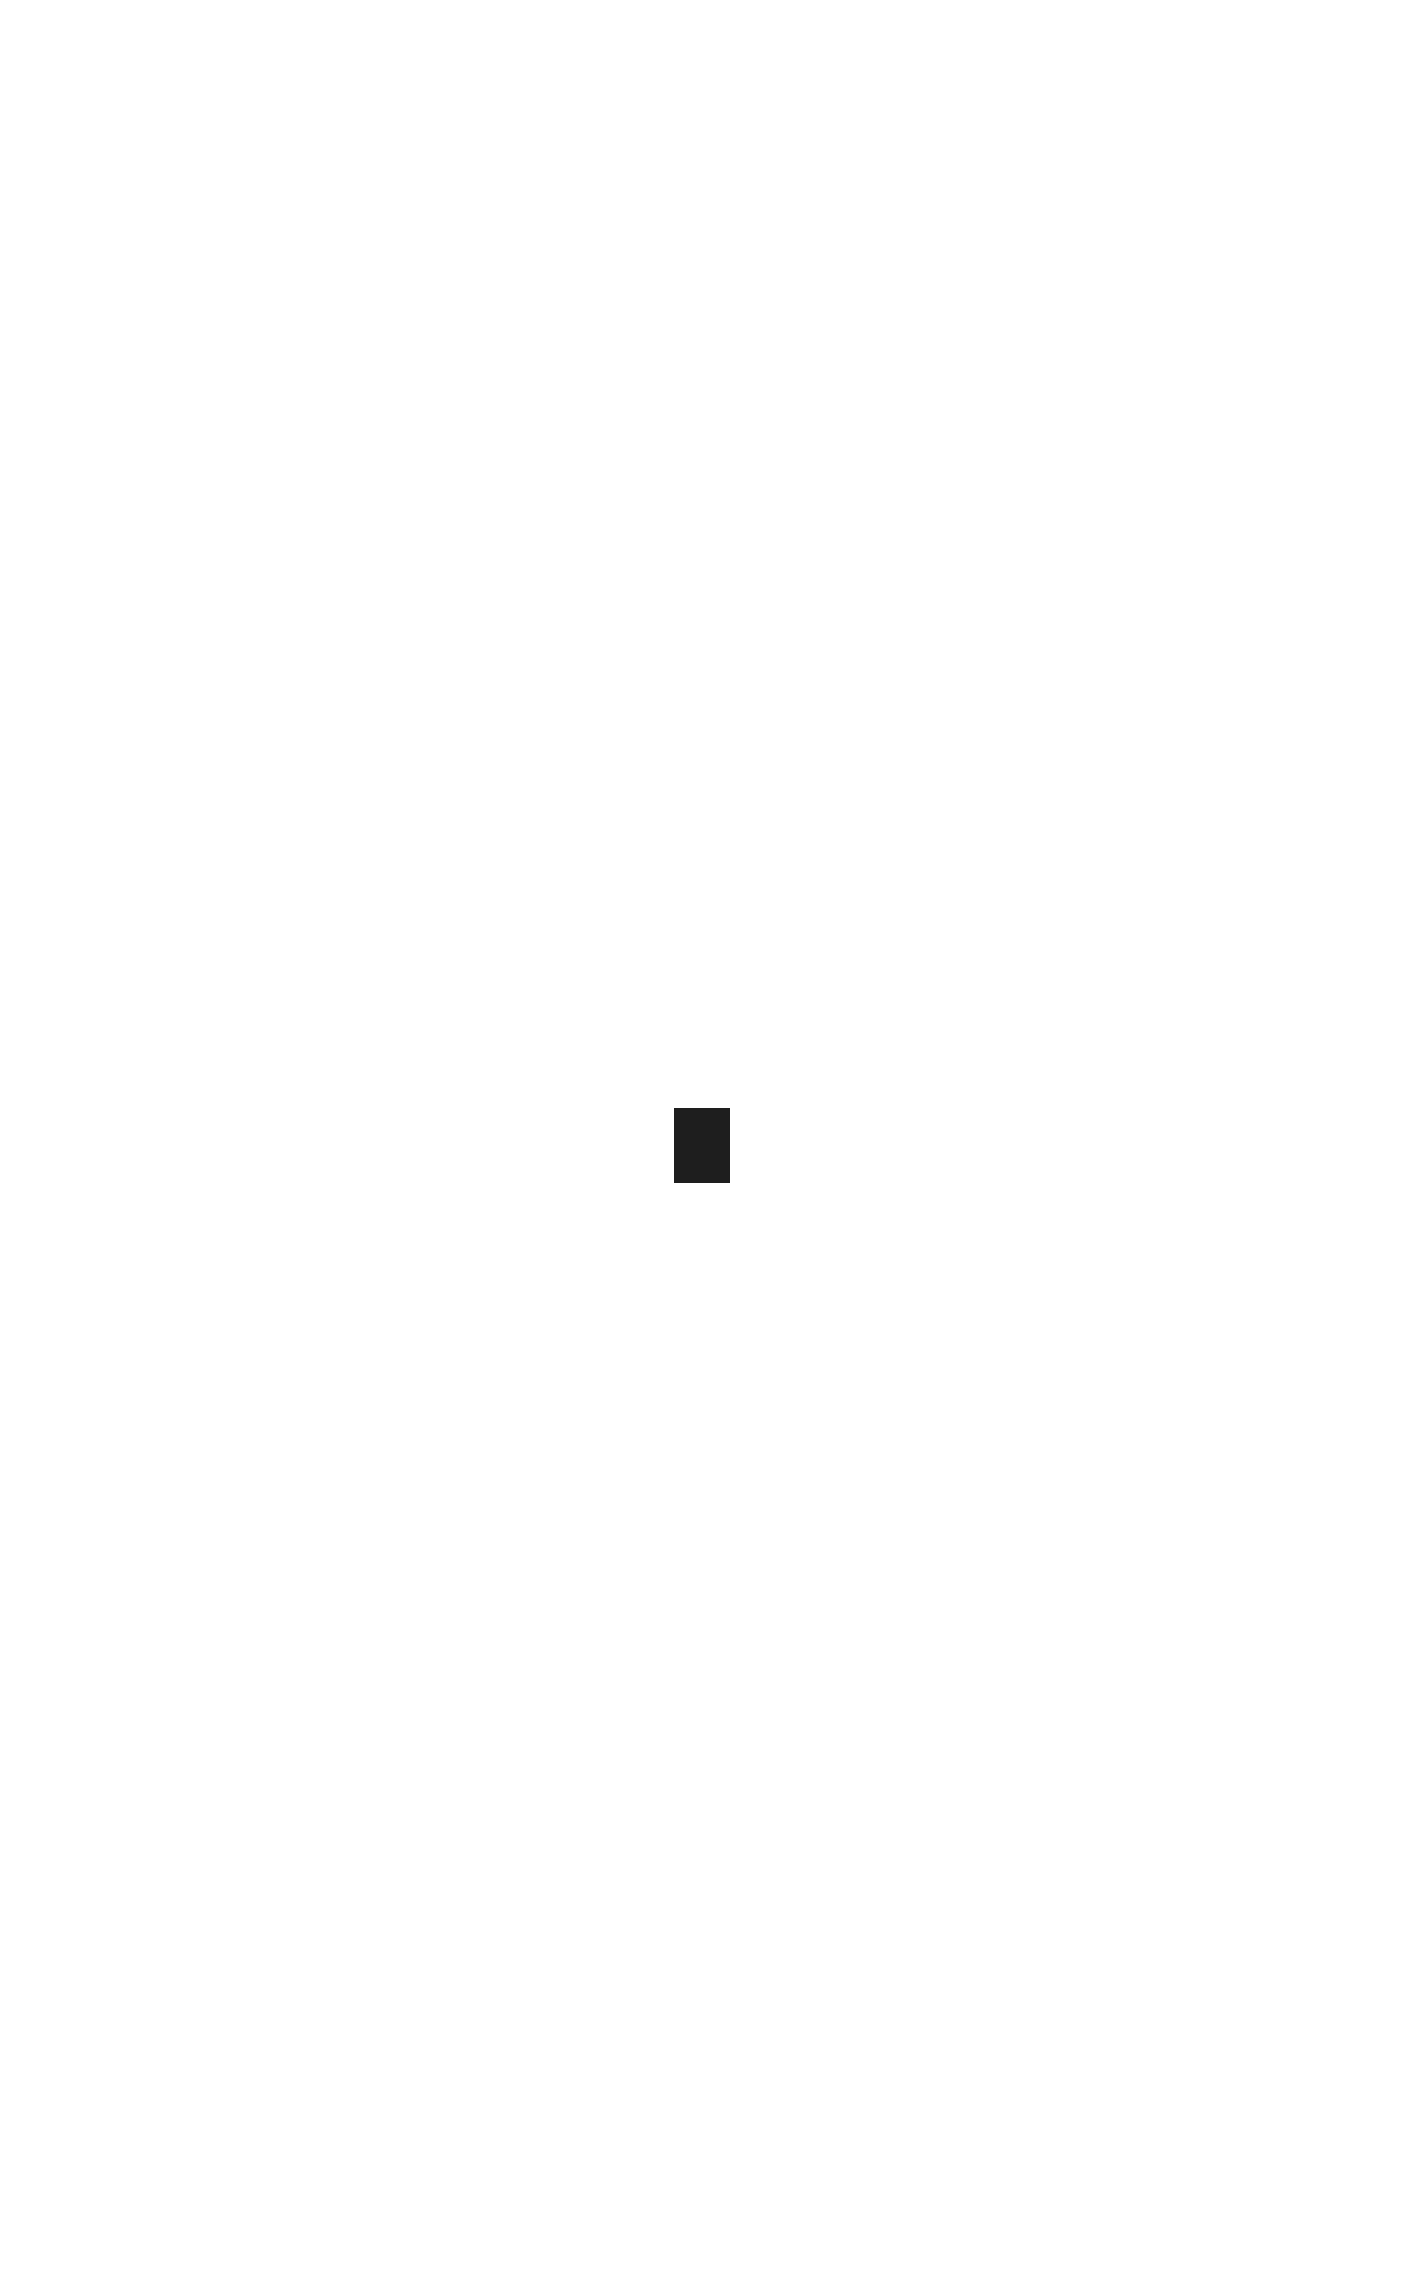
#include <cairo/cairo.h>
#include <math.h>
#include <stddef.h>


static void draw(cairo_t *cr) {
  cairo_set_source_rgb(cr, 1, 1, 1);
  cairo_paint(cr);
  cairo_set_source_rgb(cr, 30 / 255.0, 30 / 255.0, 30 / 255.0);
  cairo_rectangle(cr, 674, 1108, 56, 75);
  cairo_fill(cr);
}

int main(void) {
  cairo_surface_t *surface = cairo_image_surface_create(CAIRO_FORMAT_RGB24, 1403, 2289);
  cairo_t *cr = cairo_create(surface);
  cairo_font_options_t *options = cairo_font_options_create();
  cairo_font_options_set_hint_metrics(options, CAIRO_HINT_METRICS_OFF);
  cairo_font_options_set_hint_style(options, CAIRO_HINT_STYLE_NONE);
  cairo_set_font_options(cr, options);
  cairo_set_miter_limit(cr, 4);
  draw(cr);
  cairo_surface_write_to_png(surface, "out.png");
  cairo_font_options_destroy(options);
  cairo_destroy(cr);
  cairo_surface_destroy(surface);
  return 0;
}
